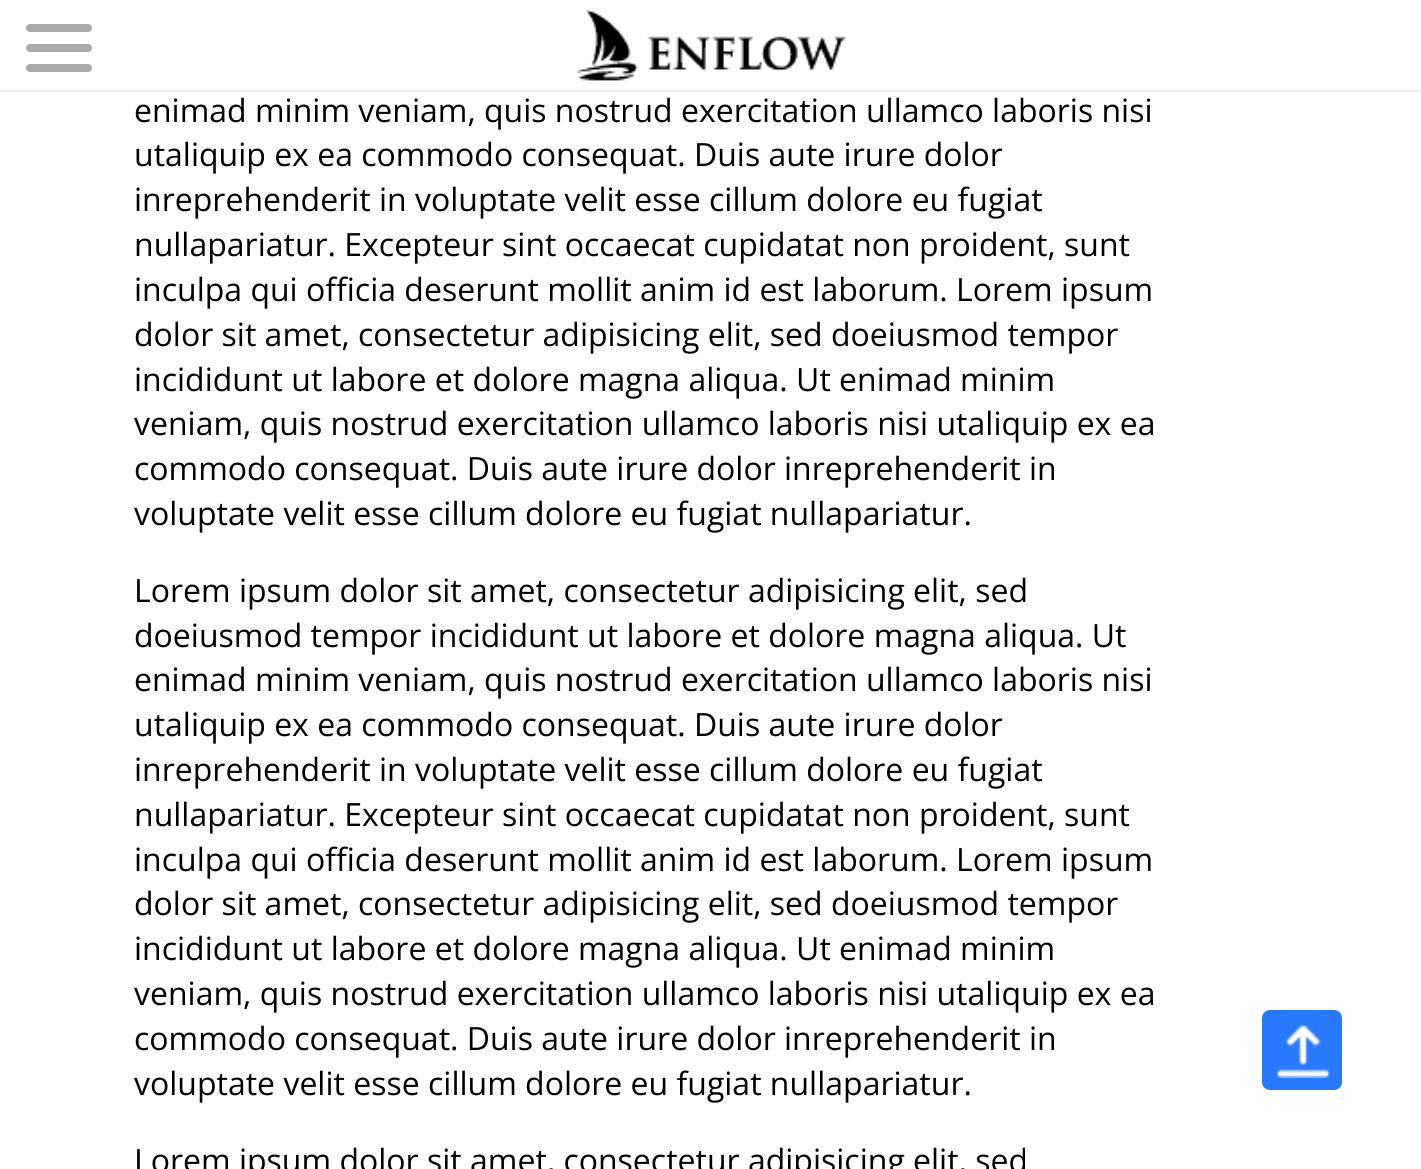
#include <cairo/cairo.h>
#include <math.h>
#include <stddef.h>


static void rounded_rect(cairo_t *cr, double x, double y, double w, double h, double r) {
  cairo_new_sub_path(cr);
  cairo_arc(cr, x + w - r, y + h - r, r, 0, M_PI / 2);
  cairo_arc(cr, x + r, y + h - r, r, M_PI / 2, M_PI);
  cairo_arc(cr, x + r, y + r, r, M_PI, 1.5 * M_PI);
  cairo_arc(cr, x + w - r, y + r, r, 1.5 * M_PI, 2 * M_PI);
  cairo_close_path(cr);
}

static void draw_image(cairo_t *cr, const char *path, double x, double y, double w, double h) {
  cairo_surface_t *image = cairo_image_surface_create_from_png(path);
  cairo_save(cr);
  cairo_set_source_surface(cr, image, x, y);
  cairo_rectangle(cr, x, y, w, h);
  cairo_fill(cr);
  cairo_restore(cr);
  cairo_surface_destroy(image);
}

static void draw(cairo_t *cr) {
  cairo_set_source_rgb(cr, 1, 1, 1);
  cairo_paint(cr);
  cairo_set_source_rgb(cr, 238 / 255.0, 238 / 255.0, 238 / 255.0);
  cairo_rectangle(cr, 0, 90, 1421, 2);
  cairo_fill(cr);
  cairo_set_source_rgb(cr, 170 / 255.0, 170 / 255.0, 170 / 255.0);
  rounded_rect(cr, 26, 44, 66, 8, 4);
  cairo_fill(cr);
  rounded_rect(cr, 26, 24, 66, 8, 4);
  cairo_fill(cr);
  rounded_rect(cr, 26, 64, 66, 8, 4);
  cairo_fill(cr);
  draw_image(cr, "images/1.png", 577, 10, 269, 71);
  cairo_set_source_rgb(cr, 40 / 255.0, 121 / 255.0, 254 / 255.0);
  rounded_rect(cr, 1262, 1010, 80, 80, 8);
  cairo_fill(cr);
  draw_image(cr, "images/2.png", 1276, 1024, 54, 54);
  cairo_select_font_face(cr, "Open Sans", CAIRO_FONT_SLANT_NORMAL, CAIRO_FONT_WEIGHT_NORMAL);
  cairo_set_font_size(cr, 32);
  cairo_set_source_rgb(cr, 0, 0, 0);
  cairo_move_to(cr, 134, 122);
  cairo_show_text(cr, "enimad minim veniam, quis nostrud exercitation ullamco laboris nisi");
  cairo_move_to(cr, 134, 166);
  cairo_show_text(cr, "utaliquip ex ea commodo consequat. Duis aute irure dolor");
  cairo_move_to(cr, 134, 211);
  cairo_show_text(cr, "inreprehenderit in voluptate velit esse cillum dolore eu fugiat");
  cairo_move_to(cr, 134, 256);
  cairo_show_text(cr, "nullapariatur. Excepteur sint occaecat cupidatat non proident, sunt");
  cairo_move_to(cr, 134, 301);
  cairo_show_text(cr, "inculpa qui officia deserunt mollit anim id est laborum. Lorem ipsum");
  cairo_move_to(cr, 134, 346);
  cairo_show_text(cr, "dolor sit amet, consectetur adipisicing elit, sed doeiusmod tempor");
  cairo_move_to(cr, 134, 391);
  cairo_show_text(cr, "incididunt ut labore et dolore magna aliqua. Ut enimad minim");
  cairo_move_to(cr, 134, 435);
  cairo_show_text(cr, "veniam, quis nostrud exercitation ullamco laboris nisi utaliquip ex ea");
  cairo_move_to(cr, 134, 480);
  cairo_show_text(cr, "commodo consequat. Duis aute irure dolor inreprehenderit in");
  cairo_move_to(cr, 134, 525);
  cairo_show_text(cr, "voluptate velit esse cillum dolore eu fugiat nullapariatur.");
  cairo_move_to(cr, 134, 602);
  cairo_show_text(cr, "Lorem ipsum dolor sit amet, consectetur adipisicing elit, sed");
  cairo_move_to(cr, 134, 647);
  cairo_show_text(cr, "doeiusmod tempor incididunt ut labore et dolore magna aliqua. Ut");
  cairo_move_to(cr, 134, 691);
  cairo_show_text(cr, "enimad minim veniam, quis nostrud exercitation ullamco laboris nisi");
  cairo_move_to(cr, 134, 736);
  cairo_show_text(cr, "utaliquip ex ea commodo consequat. Duis aute irure dolor");
  cairo_move_to(cr, 134, 781);
  cairo_show_text(cr, "inreprehenderit in voluptate velit esse cillum dolore eu fugiat");
  cairo_move_to(cr, 134, 826);
  cairo_show_text(cr, "nullapariatur. Excepteur sint occaecat cupidatat non proident, sunt");
  cairo_move_to(cr, 134, 871);
  cairo_show_text(cr, "inculpa qui officia deserunt mollit anim id est laborum. Lorem ipsum");
  cairo_move_to(cr, 134, 915);
  cairo_show_text(cr, "dolor sit amet, consectetur adipisicing elit, sed doeiusmod tempor");
  cairo_move_to(cr, 134, 960);
  cairo_show_text(cr, "incididunt ut labore et dolore magna aliqua. Ut enimad minim");
  cairo_move_to(cr, 134, 1005);
  cairo_show_text(cr, "veniam, quis nostrud exercitation ullamco laboris nisi utaliquip ex ea");
  cairo_move_to(cr, 134, 1050);
  cairo_show_text(cr, "commodo consequat. Duis aute irure dolor inreprehenderit in");
  cairo_move_to(cr, 134, 1095);
  cairo_show_text(cr, "voluptate velit esse cillum dolore eu fugiat nullapariatur.");
  cairo_move_to(cr, 134, 1172);
  cairo_show_text(cr, "Lorem ipsum dolor sit amet, consectetur adipisicing elit, sed");
}

int main(void) {
  cairo_surface_t *surface = cairo_image_surface_create(CAIRO_FORMAT_RGB24, 1421, 1169);
  cairo_t *cr = cairo_create(surface);
  cairo_font_options_t *options = cairo_font_options_create();
  cairo_font_options_set_hint_metrics(options, CAIRO_HINT_METRICS_OFF);
  cairo_font_options_set_hint_style(options, CAIRO_HINT_STYLE_NONE);
  cairo_set_font_options(cr, options);
  cairo_set_miter_limit(cr, 4);
  draw(cr);
  cairo_surface_write_to_png(surface, "out.png");
  cairo_font_options_destroy(options);
  cairo_destroy(cr);
  cairo_surface_destroy(surface);
  return 0;
}
